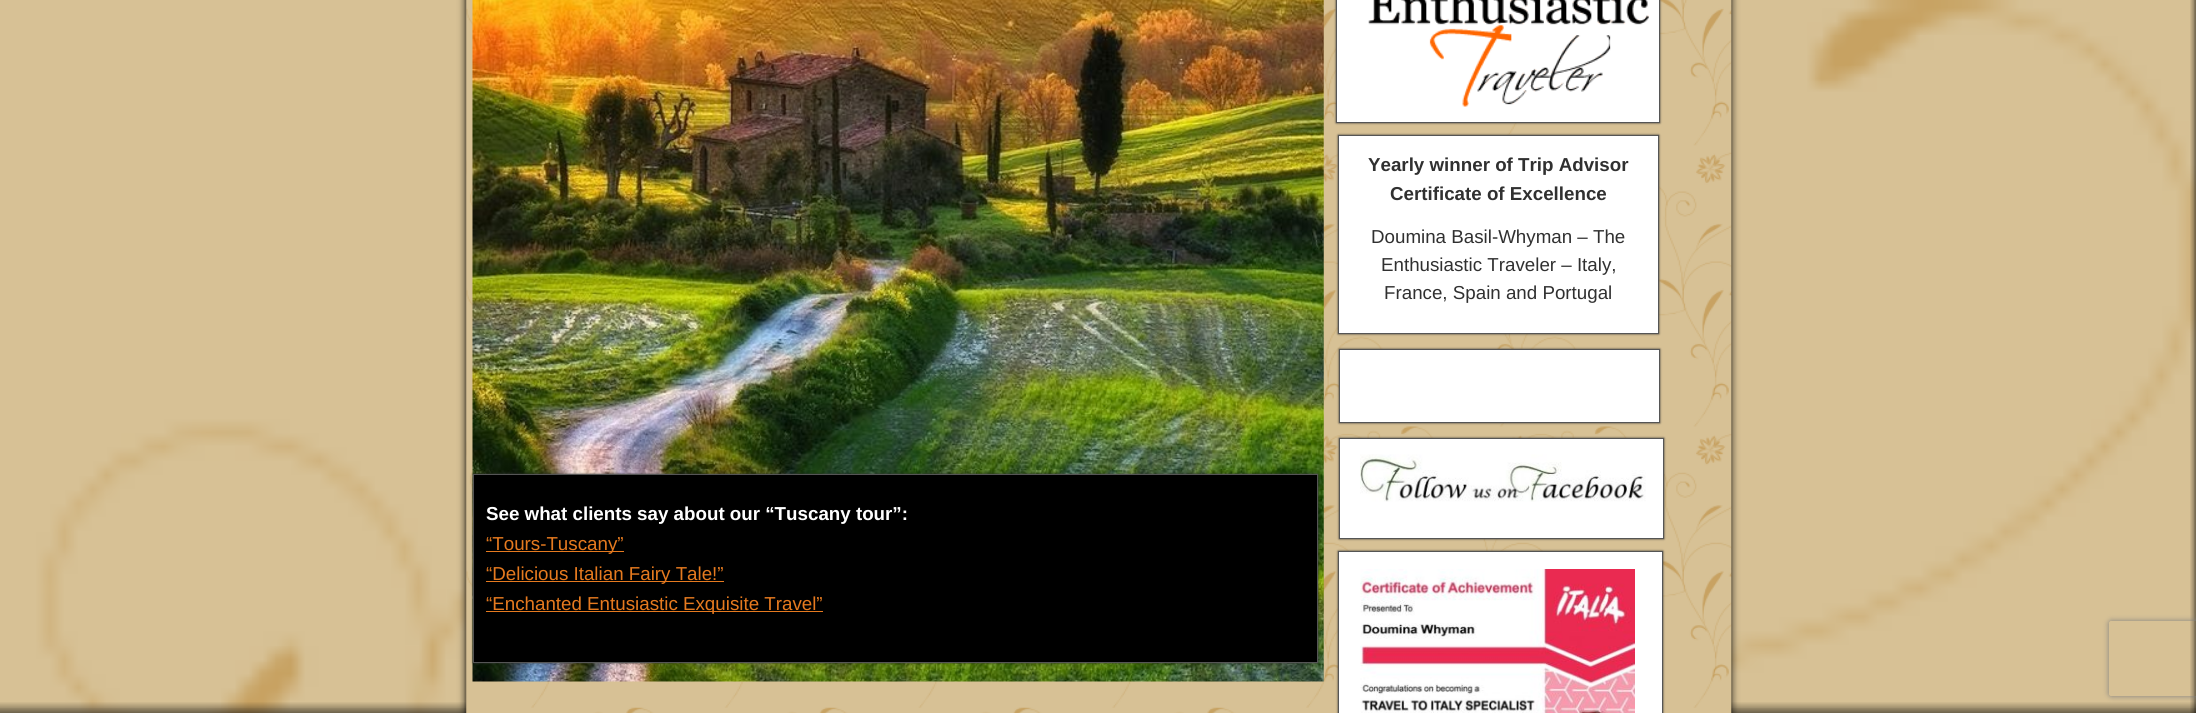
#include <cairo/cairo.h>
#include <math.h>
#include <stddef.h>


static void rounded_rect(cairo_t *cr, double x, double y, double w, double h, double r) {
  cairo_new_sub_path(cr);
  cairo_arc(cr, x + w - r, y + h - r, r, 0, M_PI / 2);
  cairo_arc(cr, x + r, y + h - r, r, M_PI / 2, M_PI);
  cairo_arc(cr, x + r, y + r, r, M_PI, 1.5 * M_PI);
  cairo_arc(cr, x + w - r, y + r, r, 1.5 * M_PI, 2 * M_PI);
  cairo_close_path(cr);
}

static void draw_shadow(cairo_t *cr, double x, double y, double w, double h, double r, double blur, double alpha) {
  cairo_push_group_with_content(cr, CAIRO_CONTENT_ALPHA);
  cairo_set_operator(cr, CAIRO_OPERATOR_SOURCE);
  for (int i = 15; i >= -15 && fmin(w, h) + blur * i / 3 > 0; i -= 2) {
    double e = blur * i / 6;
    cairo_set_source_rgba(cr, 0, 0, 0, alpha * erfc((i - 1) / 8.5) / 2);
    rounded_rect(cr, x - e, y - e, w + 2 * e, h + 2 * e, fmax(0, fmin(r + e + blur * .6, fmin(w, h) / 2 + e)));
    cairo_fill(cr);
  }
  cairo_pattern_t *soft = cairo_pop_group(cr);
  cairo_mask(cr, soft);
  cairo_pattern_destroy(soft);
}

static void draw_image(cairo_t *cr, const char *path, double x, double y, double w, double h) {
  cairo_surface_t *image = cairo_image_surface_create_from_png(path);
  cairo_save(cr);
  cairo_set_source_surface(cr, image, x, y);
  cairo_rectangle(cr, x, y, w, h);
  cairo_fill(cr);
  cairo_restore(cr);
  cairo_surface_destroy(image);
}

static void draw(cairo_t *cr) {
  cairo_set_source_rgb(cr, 0, 0, 0);
  cairo_paint(cr);
  draw_image(cr, "images/1.png", 0, 0, 2196, 713);
  draw_shadow(cr, 466, -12, 1265, 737, 0, 4, 1);
  draw_image(cr, "images/2.png", 466, 0, 1266, 713);
  cairo_set_source_rgb(cr, 51 / 255.0, 51 / 255.0, 51 / 255.0);
  draw_shadow(cr, 1336, -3, 324, 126, 0, 1, 1);
  cairo_set_source_rgb(cr, 1, 1, 1);
  cairo_rectangle(cr, 1336.5, -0.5, 323, 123);
  cairo_fill_preserve(cr);
  cairo_set_source_rgb(cr, 85 / 255.0, 85 / 255.0, 85 / 255.0);
  cairo_set_line_width(cr, 1);
  cairo_stroke(cr);
  draw_image(cr, "images/3.png", 1368, 0, 281, 107);
  cairo_set_source_rgb(cr, 51 / 255.0, 51 / 255.0, 51 / 255.0);
  draw_shadow(cr, 1338, 135, 321, 199, 0, 1, 1);
  cairo_set_source_rgb(cr, 1, 1, 1);
  cairo_rectangle(cr, 1338.5, 135.5, 320, 198);
  cairo_fill_preserve(cr);
  cairo_set_source_rgb(cr, 85 / 255.0, 85 / 255.0, 85 / 255.0);
  cairo_stroke(cr);
  cairo_set_source_rgb(cr, 51 / 255.0, 51 / 255.0, 51 / 255.0);
  draw_shadow(cr, 1339, 349, 321, 74, 0, 1, 1);
  cairo_set_source_rgb(cr, 1, 1, 1);
  cairo_rectangle(cr, 1339.5, 349.5, 320, 73);
  cairo_fill_preserve(cr);
  cairo_set_source_rgb(cr, 85 / 255.0, 85 / 255.0, 85 / 255.0);
  cairo_stroke(cr);
  cairo_set_source_rgb(cr, 51 / 255.0, 51 / 255.0, 51 / 255.0);
  draw_shadow(cr, 1339, 438, 325, 101, 0, 1, 1);
  cairo_set_source_rgb(cr, 1, 1, 1);
  cairo_rectangle(cr, 1339.5, 438.5, 324, 100);
  cairo_fill_preserve(cr);
  cairo_set_source_rgb(cr, 85 / 255.0, 85 / 255.0, 85 / 255.0);
  cairo_stroke(cr);
  draw_image(cr, "images/4.png", 1360, 454, 286, 48);
  cairo_set_source_rgb(cr, 51 / 255.0, 51 / 255.0, 51 / 255.0);
  draw_shadow(cr, 1338, 551, 325, 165, 0, 1, 1);
  cairo_set_source_rgb(cr, 1, 1, 1);
  cairo_rectangle(cr, 1338.5, 551.5, 324, 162);
  cairo_fill_preserve(cr);
  cairo_set_source_rgb(cr, 85 / 255.0, 85 / 255.0, 85 / 255.0);
  cairo_stroke(cr);
  draw_image(cr, "images/5.png", 1360, 569, 275, 144);
  draw_image(cr, "images/6.png", 472, 0, 852, 682);
  cairo_set_source_rgb(cr, 51 / 255.0, 51 / 255.0, 51 / 255.0);
  draw_shadow(cr, 473, 474, 845, 189, 0, 1, 1);
  cairo_set_source_rgb(cr, 0, 0, 0);
  cairo_rectangle(cr, 473.5, 474.5, 844, 188);
  cairo_fill_preserve(cr);
  cairo_set_source_rgb(cr, 85 / 255.0, 85 / 255.0, 85 / 255.0);
  cairo_stroke(cr);
  cairo_set_source_rgb(cr, 230 / 255.0, 122 / 255.0, 31 / 255.0);
  cairo_rectangle(cr, 486, 551, 138, 1);
  cairo_fill(cr);
  cairo_rectangle(cr, 486, 581, 238, 1);
  cairo_fill(cr);
  cairo_rectangle(cr, 486, 611, 337, 1);
  cairo_fill(cr);
  cairo_save(cr);
  cairo_set_fill_rule(cr, CAIRO_FILL_RULE_EVEN_ODD);
  cairo_new_path(cr);
  cairo_move_to(cr, 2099, 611);
  cairo_line_to(cr, 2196, 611);
  cairo_line_to(cr, 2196, 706);
  cairo_line_to(cr, 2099, 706);
  cairo_close_path(cr);
  cairo_move_to(cr, 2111.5, 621);
  cairo_line_to(cr, 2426.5, 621);
  cairo_curve_to(cr, 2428, 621, 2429, 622, 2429, 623.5);
  cairo_line_to(cr, 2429, 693.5);
  cairo_curve_to(cr, 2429, 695, 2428, 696, 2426.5, 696);
  cairo_line_to(cr, 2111.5, 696);
  cairo_curve_to(cr, 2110, 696, 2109, 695, 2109, 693.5);
  cairo_line_to(cr, 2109, 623.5);
  cairo_curve_to(cr, 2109, 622, 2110, 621, 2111.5, 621);
  cairo_close_path(cr);
  cairo_clip(cr);
  cairo_set_source_rgb(cr, 128 / 255.0, 128 / 255.0, 128 / 255.0);
  draw_shadow(cr, 2109, 621, 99, 75, 2.5, 3, 1);
  cairo_restore(cr);
  cairo_select_font_face(cr, "Liberation Sans", CAIRO_FONT_SLANT_NORMAL, CAIRO_FONT_WEIGHT_BOLD);
  cairo_set_font_size(cr, 18.75);
  cairo_set_source_rgb(cr, 48 / 255.0, 48 / 255.0, 48 / 255.0);
  cairo_move_to(cr, 1368, 171);
  cairo_show_text(cr, "Yearly winner of Trip Advisor");
  cairo_move_to(cr, 1390, 200);
  cairo_show_text(cr, "Certificate of Excellence");
  cairo_select_font_face(cr, "Liberation Sans", CAIRO_FONT_SLANT_NORMAL, CAIRO_FONT_WEIGHT_NORMAL);
  cairo_move_to(cr, 1371, 243);
  cairo_show_text(cr, "Doumina Basil-Whyman – The");
  cairo_move_to(cr, 1381, 271);
  cairo_show_text(cr, "Enthusiastic Traveler – Italy,");
  cairo_move_to(cr, 1384, 299);
  cairo_show_text(cr, "France, Spain and Portugal");
  cairo_select_font_face(cr, "Arimo", CAIRO_FONT_SLANT_NORMAL, CAIRO_FONT_WEIGHT_BOLD);
  cairo_set_source_rgb(cr, 1, 1, 1);
  cairo_move_to(cr, 486, 520);
  cairo_show_text(cr, "See what clients say about our “Tuscany tour”:");
  cairo_select_font_face(cr, "Arimo", CAIRO_FONT_SLANT_NORMAL, CAIRO_FONT_WEIGHT_NORMAL);
  cairo_set_source_rgb(cr, 230 / 255.0, 122 / 255.0, 31 / 255.0);
  cairo_move_to(cr, 486, 550);
  cairo_show_text(cr, "“Tours-Tuscany”");
  cairo_move_to(cr, 486, 580);
  cairo_show_text(cr, "“Delicious Italian Fairy Tale!”");
  cairo_move_to(cr, 486, 610);
  cairo_show_text(cr, "“Enchanted Entusiastic Exquisite Travel”");
}

int main(void) {
  cairo_surface_t *surface = cairo_image_surface_create(CAIRO_FORMAT_RGB24, 2196, 713);
  cairo_t *cr = cairo_create(surface);
  cairo_font_options_t *options = cairo_font_options_create();
  cairo_font_options_set_hint_metrics(options, CAIRO_HINT_METRICS_OFF);
  cairo_font_options_set_hint_style(options, CAIRO_HINT_STYLE_NONE);
  cairo_set_font_options(cr, options);
  cairo_set_miter_limit(cr, 4);
  draw(cr);
  cairo_surface_write_to_png(surface, "out.png");
  cairo_font_options_destroy(options);
  cairo_destroy(cr);
  cairo_surface_destroy(surface);
  return 0;
}
